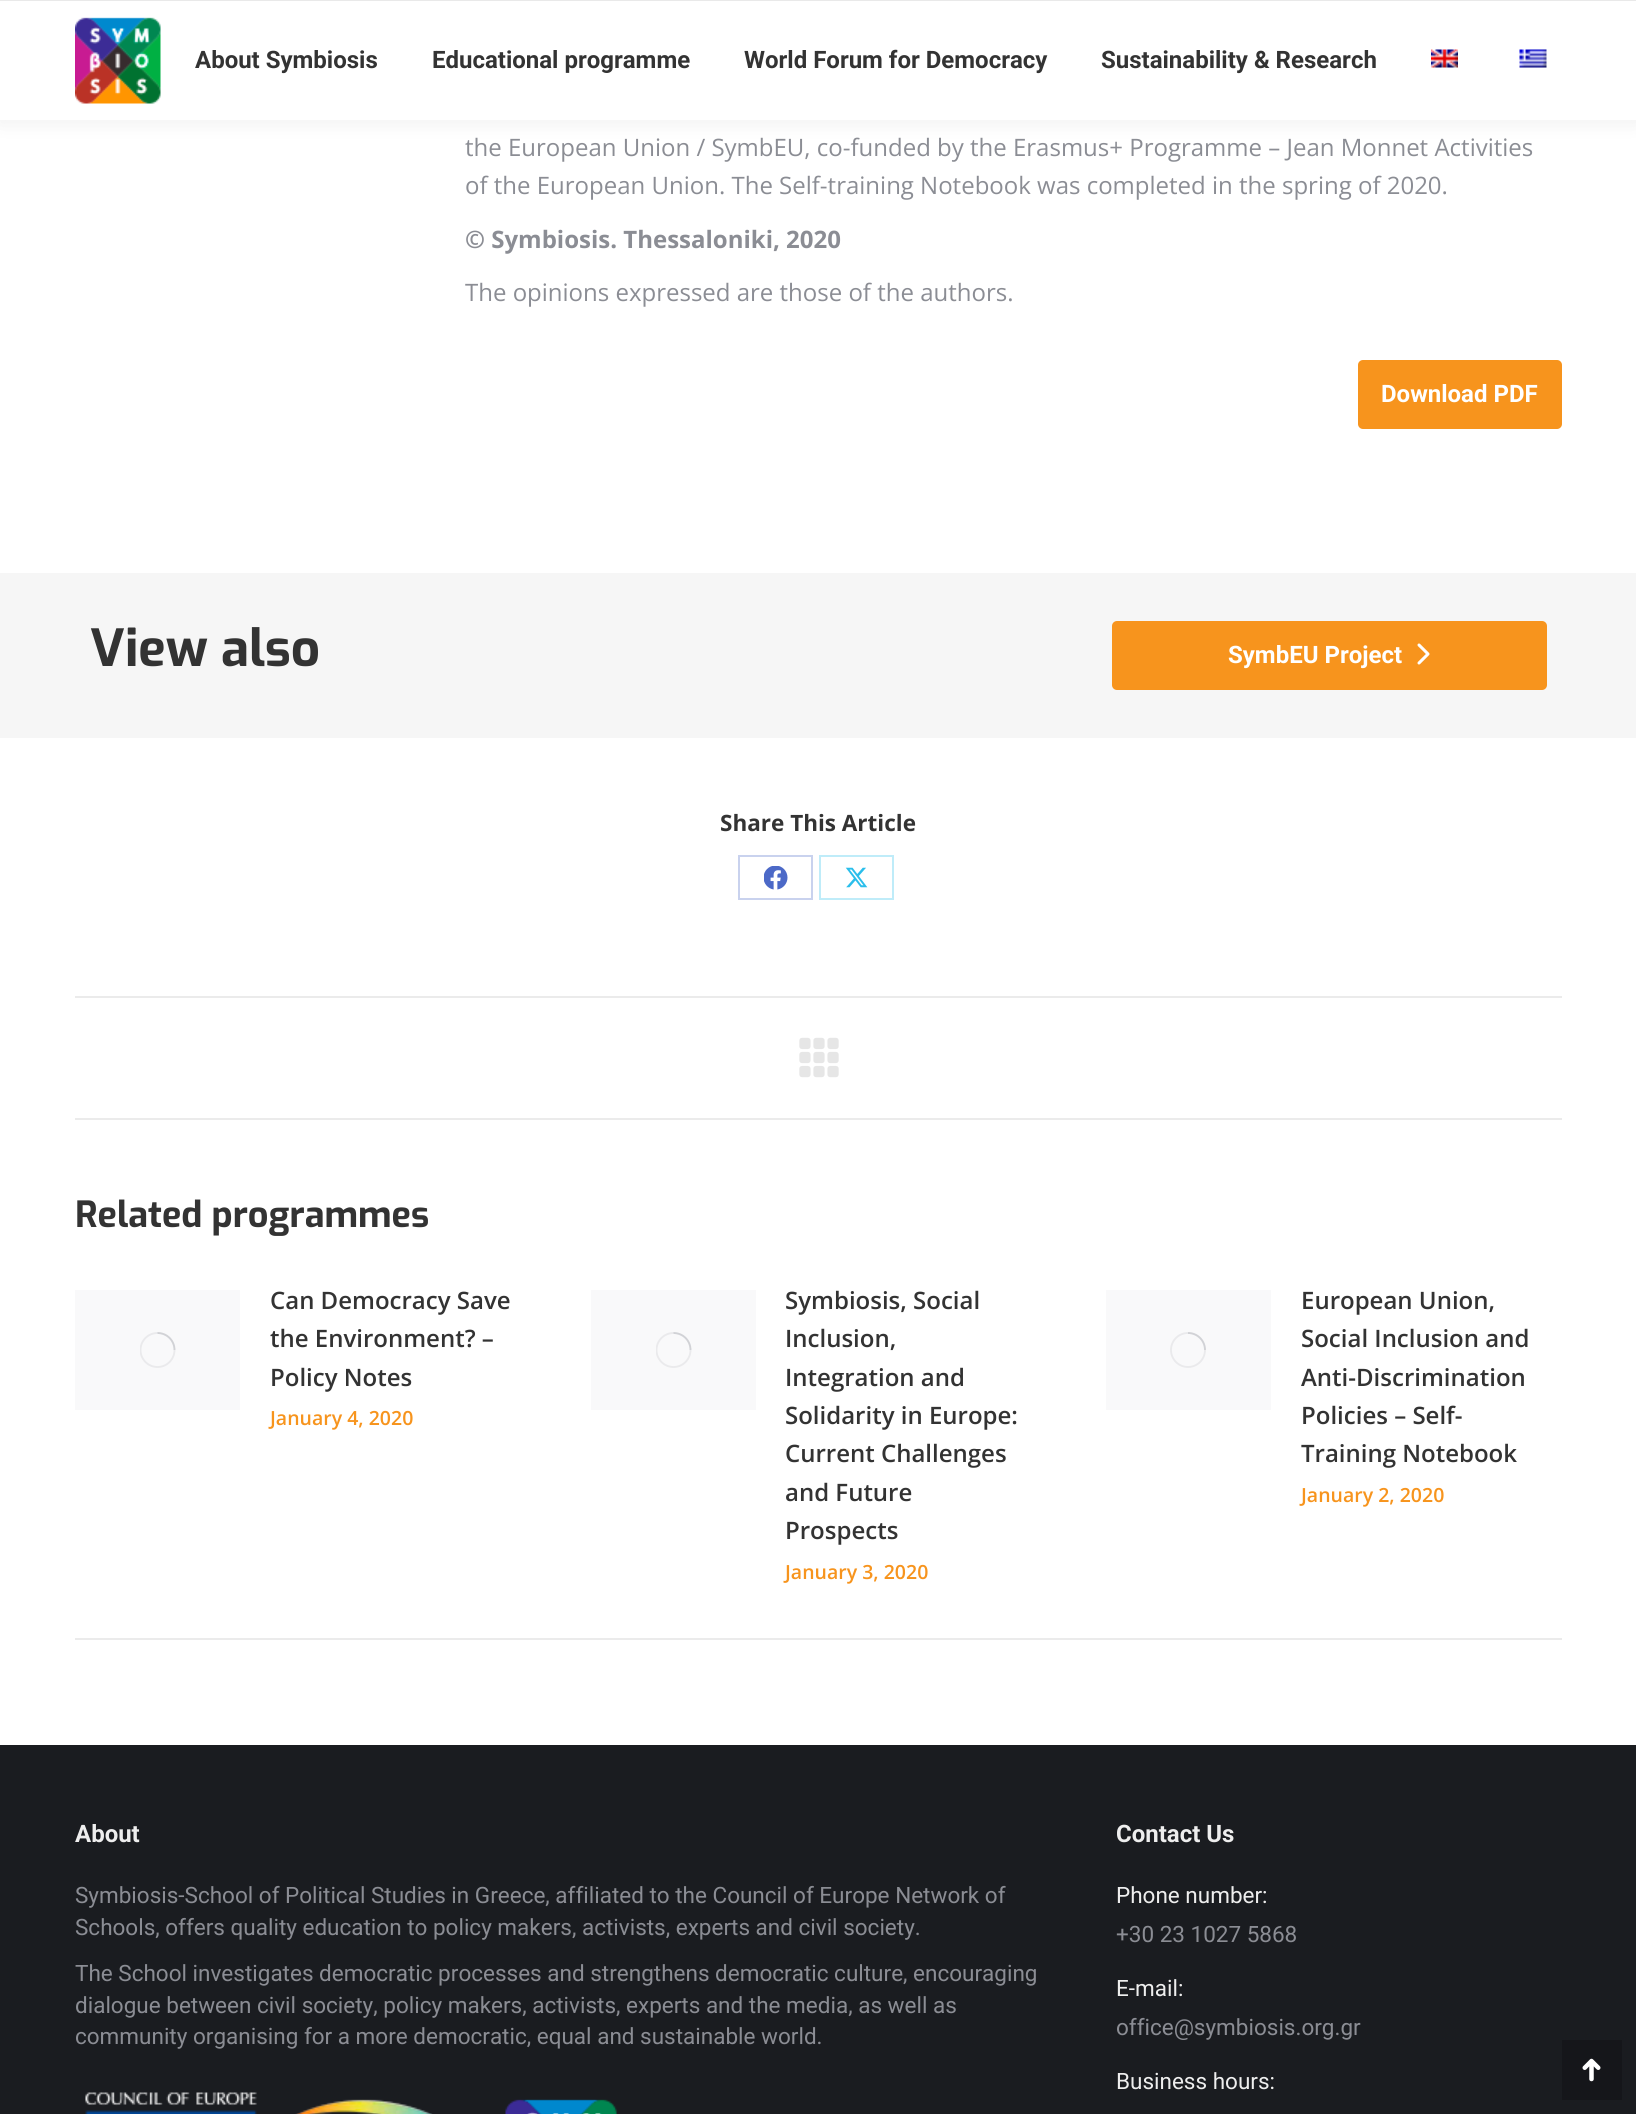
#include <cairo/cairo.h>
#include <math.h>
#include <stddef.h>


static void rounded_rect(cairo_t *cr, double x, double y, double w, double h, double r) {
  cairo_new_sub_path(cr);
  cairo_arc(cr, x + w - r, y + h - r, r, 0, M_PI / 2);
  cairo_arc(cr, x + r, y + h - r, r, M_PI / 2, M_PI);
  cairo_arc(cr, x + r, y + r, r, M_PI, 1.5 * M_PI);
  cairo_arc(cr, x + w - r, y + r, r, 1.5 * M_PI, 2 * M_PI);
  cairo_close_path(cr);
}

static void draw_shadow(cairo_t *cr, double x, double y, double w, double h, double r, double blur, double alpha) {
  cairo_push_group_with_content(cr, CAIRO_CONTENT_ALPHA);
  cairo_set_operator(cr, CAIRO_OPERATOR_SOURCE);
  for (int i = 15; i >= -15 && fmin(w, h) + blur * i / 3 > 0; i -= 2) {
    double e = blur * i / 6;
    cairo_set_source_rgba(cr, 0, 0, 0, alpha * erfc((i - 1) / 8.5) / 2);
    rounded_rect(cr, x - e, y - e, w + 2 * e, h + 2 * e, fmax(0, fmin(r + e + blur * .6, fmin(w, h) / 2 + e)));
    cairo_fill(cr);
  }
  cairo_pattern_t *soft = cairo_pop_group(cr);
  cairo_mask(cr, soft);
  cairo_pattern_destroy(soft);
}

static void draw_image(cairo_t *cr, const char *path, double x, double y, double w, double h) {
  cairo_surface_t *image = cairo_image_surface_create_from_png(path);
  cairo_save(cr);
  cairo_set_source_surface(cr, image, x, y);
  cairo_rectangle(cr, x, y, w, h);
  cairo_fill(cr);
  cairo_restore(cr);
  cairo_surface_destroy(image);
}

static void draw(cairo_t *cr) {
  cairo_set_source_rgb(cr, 1, 1, 1);
  cairo_paint(cr);
  cairo_set_source_rgb(cr, 0, 0, 0);
  draw_shadow(cr, -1, -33, 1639, 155, 0, 11, 0.07);
  cairo_set_source_rgb(cr, 1, 1, 1);
  cairo_rectangle(cr, 0, 1, 1636, 119);
  cairo_fill(cr);
  cairo_set_source_rgb(cr, 233 / 255.0, 233 / 255.0, 233 / 255.0);
  cairo_rectangle(cr, 0, 0, 1636, 1);
  cairo_fill(cr);
  draw_image(cr, "images/1.png", 75, 17, 86, 87);
  draw_image(cr, "images/2.png", 1431, 49, 27, 19);
  draw_image(cr, "images/3.png", 1519, 49, 28, 19);
  cairo_set_source_rgb(cr, 247 / 255.0, 148 / 255.0, 29 / 255.0);
  rounded_rect(cr, 1358, 360, 204, 69, 5);
  cairo_fill(cr);
  cairo_set_source_rgb(cr, 246 / 255.0, 246 / 255.0, 246 / 255.0);
  cairo_rectangle(cr, 0, 573, 1636, 165);
  cairo_fill(cr);
  cairo_set_source_rgb(cr, 247 / 255.0, 148 / 255.0, 29 / 255.0);
  rounded_rect(cr, 1112, 621, 435, 69, 5);
  cairo_fill(cr);
  draw_image(cr, "images/4.png", 1417, 643, 13, 22);
  cairo_rectangle(cr, 739, 856, 73, 43);
  cairo_set_source_rgb(cr, 201 / 255.0, 210 / 255.0, 238 / 255.0);
  cairo_stroke(cr);
  draw_image(cr, "images/5.png", 764, 866, 24, 24);
  cairo_rectangle(cr, 820, 856, 73, 43);
  cairo_set_source_rgb(cr, 191 / 255.0, 236 / 255.0, 249 / 255.0);
  cairo_stroke(cr);
  draw_image(cr, "images/6.png", 845, 867, 23, 21);
  cairo_set_source_rgb(cr, 235 / 255.0, 235 / 255.0, 235 / 255.0);
  cairo_rectangle(cr, 75, 996, 1487, 2);
  cairo_fill(cr);
  cairo_rectangle(cr, 75, 1118, 1487, 2);
  cairo_fill(cr);
  draw_image(cr, "images/7.png", 799, 1037, 40, 41);
  cairo_rectangle(cr, 75, 1638, 1487, 2);
  cairo_fill(cr);
  cairo_set_source_rgb(cr, 249 / 255.0, 249 / 255.0, 250 / 255.0);
  cairo_rectangle(cr, 75, 1290, 165, 120);
  cairo_fill(cr);
  cairo_save(cr);
  cairo_rectangle(cr, 140, 1332, 36, 36);
  cairo_clip(cr);
  cairo_arc(cr, 157.5, 1350, 17, 0, 2 * M_PI);
  cairo_set_source_rgb(cr, 234 / 255.0, 234 / 255.0, 236 / 255.0);
  cairo_set_line_width(cr, 1.9);
  cairo_stroke(cr);
  cairo_restore(cr);
  cairo_new_path(cr);
  cairo_move_to(cr, 174.5, 1350);
  cairo_curve_to(cr, 174.5, 1340.5, 167, 1333, 157.5, 1333);
  cairo_set_source_rgba(cr, 139 / 255.0, 141 / 255.0, 148 / 255.0, 0.25);
  cairo_set_line_width(cr, 1.9);
  cairo_stroke(cr);
  cairo_set_source_rgb(cr, 249 / 255.0, 249 / 255.0, 250 / 255.0);
  cairo_rectangle(cr, 591, 1290, 165, 120);
  cairo_fill(cr);
  cairo_save(cr);
  cairo_rectangle(cr, 656, 1332, 36, 36);
  cairo_clip(cr);
  cairo_arc(cr, 673.5, 1350, 17, 0, 2 * M_PI);
  cairo_set_source_rgb(cr, 234 / 255.0, 234 / 255.0, 236 / 255.0);
  cairo_stroke(cr);
  cairo_restore(cr);
  cairo_new_path(cr);
  cairo_move_to(cr, 690.5, 1350);
  cairo_curve_to(cr, 690.5, 1340.5, 683, 1333, 673.5, 1333);
  cairo_set_source_rgba(cr, 139 / 255.0, 141 / 255.0, 148 / 255.0, 0.25);
  cairo_stroke(cr);
  cairo_set_source_rgb(cr, 249 / 255.0, 249 / 255.0, 250 / 255.0);
  cairo_rectangle(cr, 1106, 1290, 165, 120);
  cairo_fill(cr);
  cairo_arc(cr, 1188, 1350, 17, 0, 2 * M_PI);
  cairo_set_source_rgb(cr, 234 / 255.0, 234 / 255.0, 236 / 255.0);
  cairo_stroke(cr);
  cairo_new_path(cr);
  cairo_move_to(cr, 1205, 1350);
  cairo_curve_to(cr, 1205, 1340.5, 1197.5, 1333, 1188, 1333);
  cairo_set_source_rgba(cr, 139 / 255.0, 141 / 255.0, 148 / 255.0, 0.25);
  cairo_stroke(cr);
  cairo_set_source_rgb(cr, 26 / 255.0, 28 / 255.0, 32 / 255.0);
  cairo_rectangle(cr, 0, 1745, 1636, 369);
  cairo_fill(cr);
  draw_image(cr, "images/8.png", 85, 2092, 532, 22);
  cairo_set_source_rgb(cr, 21 / 255.0, 22 / 255.0, 26 / 255.0);
  cairo_rectangle(cr, 1562, 2040, 60, 60);
  cairo_fill(cr);
  draw_image(cr, "images/9.png", 1582, 2058, 19, 24);
  cairo_select_font_face(cr, "Roboto", CAIRO_FONT_SLANT_NORMAL, CAIRO_FONT_WEIGHT_BOLD);
  cairo_set_font_size(cr, 24);
  cairo_set_source_rgb(cr, 51 / 255.0, 51 / 255.0, 51 / 255.0);
  cairo_move_to(cr, 195, 68);
  cairo_show_text(cr, "About Symbiosis");
  cairo_move_to(cr, 432, 68);
  cairo_show_text(cr, "Educational programme");
  cairo_move_to(cr, 744, 68);
  cairo_show_text(cr, "World Forum for Democracy");
  cairo_move_to(cr, 1101, 68);
  cairo_show_text(cr, "Sustainability & Research");
  cairo_select_font_face(cr, "Open Sans", CAIRO_FONT_SLANT_NORMAL, CAIRO_FONT_WEIGHT_NORMAL);
  cairo_set_source_rgb(cr, 139 / 255.0, 141 / 255.0, 148 / 255.0);
  cairo_move_to(cr, 465, 156);
  cairo_show_text(cr, "the European Union / SymbEU, co-funded by the Erasmus+ Programme – Jean Monnet Activities");
  cairo_move_to(cr, 465, 194);
  cairo_show_text(cr, "of the European Union. The Self-training Notebook was completed in the spring of 2020.");
  cairo_select_font_face(cr, "Open Sans", CAIRO_FONT_SLANT_NORMAL, CAIRO_FONT_WEIGHT_BOLD);
  cairo_move_to(cr, 465, 248);
  cairo_show_text(cr, "© Symbiosis. Thessaloniki, 2020");
  cairo_select_font_face(cr, "Open Sans", CAIRO_FONT_SLANT_NORMAL, CAIRO_FONT_WEIGHT_NORMAL);
  cairo_move_to(cr, 465, 301);
  cairo_show_text(cr, "The opinions expressed are those of the authors.");
  cairo_select_font_face(cr, "Roboto", CAIRO_FONT_SLANT_NORMAL, CAIRO_FONT_WEIGHT_BOLD);
  cairo_set_source_rgb(cr, 1, 1, 1);
  cairo_move_to(cr, 1381, 402);
  cairo_show_text(cr, "Download PDF");
  cairo_select_font_face(cr, "Exo", CAIRO_FONT_SLANT_NORMAL, CAIRO_FONT_WEIGHT_BOLD);
  cairo_set_font_size(cr, 51);
  cairo_set_source_rgb(cr, 51 / 255.0, 51 / 255.0, 51 / 255.0);
  cairo_move_to(cr, 90, 666);
  cairo_show_text(cr, "View also");
  cairo_select_font_face(cr, "Roboto", CAIRO_FONT_SLANT_NORMAL, CAIRO_FONT_WEIGHT_BOLD);
  cairo_set_font_size(cr, 24);
  cairo_set_source_rgb(cr, 1, 1, 1);
  cairo_move_to(cr, 1228, 663);
  cairo_show_text(cr, "SymbEU Project");
  cairo_select_font_face(cr, "Open Sans", CAIRO_FONT_SLANT_NORMAL, CAIRO_FONT_WEIGHT_BOLD);
  cairo_set_font_size(cr, 22.5);
  cairo_set_source_rgb(cr, 51 / 255.0, 51 / 255.0, 51 / 255.0);
  cairo_move_to(cr, 720, 831);
  cairo_show_text(cr, "Share This Article");
  cairo_select_font_face(cr, "Exo", CAIRO_FONT_SLANT_NORMAL, CAIRO_FONT_WEIGHT_BOLD);
  cairo_set_font_size(cr, 36);
  cairo_move_to(cr, 75, 1227);
  cairo_show_text(cr, "Related programmes");
  cairo_select_font_face(cr, "Open Sans SemiBold", CAIRO_FONT_SLANT_NORMAL, CAIRO_FONT_WEIGHT_NORMAL);
  cairo_set_font_size(cr, 24);
  cairo_move_to(cr, 270, 1309);
  cairo_show_text(cr, "Can Democracy Save");
  cairo_move_to(cr, 270, 1347);
  cairo_show_text(cr, "the Environment? –");
  cairo_move_to(cr, 270, 1386);
  cairo_show_text(cr, "Policy Notes");
  cairo_set_font_size(cr, 19.5);
  cairo_set_source_rgb(cr, 247 / 255.0, 148 / 255.0, 29 / 255.0);
  cairo_move_to(cr, 270, 1425);
  cairo_show_text(cr, "January 4, 2020");
  cairo_set_font_size(cr, 24);
  cairo_set_source_rgb(cr, 51 / 255.0, 51 / 255.0, 51 / 255.0);
  cairo_move_to(cr, 785, 1309);
  cairo_show_text(cr, "Symbiosis, Social");
  cairo_move_to(cr, 785, 1347);
  cairo_show_text(cr, "Inclusion,");
  cairo_move_to(cr, 785, 1386);
  cairo_show_text(cr, "Integration and");
  cairo_move_to(cr, 785, 1424);
  cairo_show_text(cr, "Solidarity in Europe:");
  cairo_move_to(cr, 785, 1462);
  cairo_show_text(cr, "Current Challenges");
  cairo_move_to(cr, 785, 1501);
  cairo_show_text(cr, "and Future");
  cairo_move_to(cr, 785, 1539);
  cairo_show_text(cr, "Prospects");
  cairo_set_font_size(cr, 19.5);
  cairo_set_source_rgb(cr, 247 / 255.0, 148 / 255.0, 29 / 255.0);
  cairo_move_to(cr, 785, 1579);
  cairo_show_text(cr, "January 3, 2020");
  cairo_set_font_size(cr, 24);
  cairo_set_source_rgb(cr, 51 / 255.0, 51 / 255.0, 51 / 255.0);
  cairo_move_to(cr, 1301, 1309);
  cairo_show_text(cr, "European Union,");
  cairo_move_to(cr, 1301, 1347);
  cairo_show_text(cr, "Social Inclusion and");
  cairo_move_to(cr, 1301, 1386);
  cairo_show_text(cr, "Anti-Discrimination");
  cairo_move_to(cr, 1301, 1424);
  cairo_show_text(cr, "Policies – Self-");
  cairo_move_to(cr, 1301, 1462);
  cairo_show_text(cr, "Training Notebook");
  cairo_set_font_size(cr, 19.5);
  cairo_set_source_rgb(cr, 247 / 255.0, 148 / 255.0, 29 / 255.0);
  cairo_move_to(cr, 1301, 1502);
  cairo_show_text(cr, "January 2, 2020");
  cairo_select_font_face(cr, "Roboto", CAIRO_FONT_SLANT_NORMAL, CAIRO_FONT_WEIGHT_BOLD);
  cairo_set_font_size(cr, 24);
  cairo_set_source_rgb(cr, 238 / 255.0, 238 / 255.0, 238 / 255.0);
  cairo_move_to(cr, 75, 1842);
  cairo_show_text(cr, "About");
  cairo_select_font_face(cr, "Roboto", CAIRO_FONT_SLANT_NORMAL, CAIRO_FONT_WEIGHT_NORMAL);
  cairo_set_font_size(cr, 22.5);
  cairo_set_source_rgb(cr, 139 / 255.0, 141 / 255.0, 148 / 255.0);
  cairo_move_to(cr, 75, 1903);
  cairo_show_text(cr, "Symbiosis-School of Political Studies in Greece, affiliated to the Council of Europe Network of");
  cairo_move_to(cr, 75, 1935);
  cairo_show_text(cr, "Schools, offers quality education to policy makers, activists, experts and civil society.");
  cairo_move_to(cr, 75, 1981);
  cairo_show_text(cr, "The School investigates democratic processes and strengthens democratic culture, encouraging");
  cairo_move_to(cr, 75, 2013);
  cairo_show_text(cr, "dialogue between civil society, policy makers, activists, experts and the media, as well as");
  cairo_move_to(cr, 75, 2044);
  cairo_show_text(cr, "community organising for a more democratic, equal and sustainable world.");
  cairo_select_font_face(cr, "Roboto", CAIRO_FONT_SLANT_NORMAL, CAIRO_FONT_WEIGHT_BOLD);
  cairo_set_font_size(cr, 24);
  cairo_set_source_rgb(cr, 238 / 255.0, 238 / 255.0, 238 / 255.0);
  cairo_move_to(cr, 1116, 1842);
  cairo_show_text(cr, "Contact Us");
  cairo_select_font_face(cr, "Roboto", CAIRO_FONT_SLANT_NORMAL, CAIRO_FONT_WEIGHT_NORMAL);
  cairo_set_font_size(cr, 22.5);
  cairo_move_to(cr, 1116, 1903);
  cairo_show_text(cr, "Phone number:");
  cairo_set_source_rgb(cr, 139 / 255.0, 141 / 255.0, 148 / 255.0);
  cairo_move_to(cr, 1116, 1942);
  cairo_show_text(cr, "+30 23 1027 5868");
  cairo_set_source_rgb(cr, 238 / 255.0, 238 / 255.0, 238 / 255.0);
  cairo_move_to(cr, 1116, 1996);
  cairo_show_text(cr, "E-mail:");
  cairo_set_source_rgb(cr, 139 / 255.0, 141 / 255.0, 148 / 255.0);
  cairo_move_to(cr, 1116, 2035);
  cairo_show_text(cr, "office@symbiosis.org.gr");
  cairo_set_source_rgb(cr, 238 / 255.0, 238 / 255.0, 238 / 255.0);
  cairo_move_to(cr, 1116, 2089);
  cairo_show_text(cr, "Business hours:");
}

int main(void) {
  cairo_surface_t *surface = cairo_image_surface_create(CAIRO_FORMAT_RGB24, 1636, 2114);
  cairo_t *cr = cairo_create(surface);
  cairo_font_options_t *options = cairo_font_options_create();
  cairo_font_options_set_hint_metrics(options, CAIRO_HINT_METRICS_OFF);
  cairo_font_options_set_hint_style(options, CAIRO_HINT_STYLE_NONE);
  cairo_set_font_options(cr, options);
  cairo_set_miter_limit(cr, 4);
  draw(cr);
  cairo_surface_write_to_png(surface, "out.png");
  cairo_font_options_destroy(options);
  cairo_destroy(cr);
  cairo_surface_destroy(surface);
  return 0;
}
